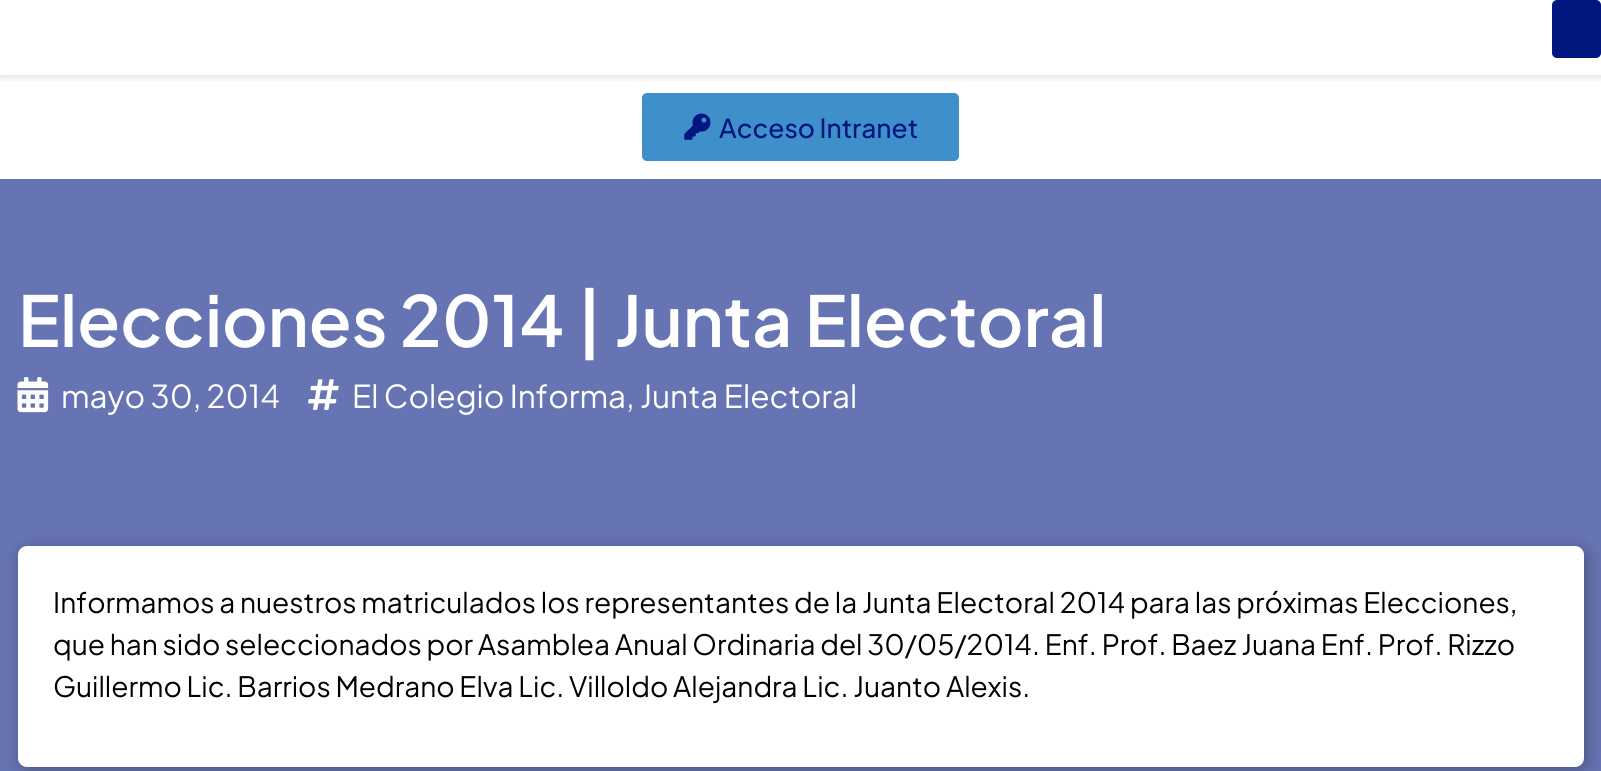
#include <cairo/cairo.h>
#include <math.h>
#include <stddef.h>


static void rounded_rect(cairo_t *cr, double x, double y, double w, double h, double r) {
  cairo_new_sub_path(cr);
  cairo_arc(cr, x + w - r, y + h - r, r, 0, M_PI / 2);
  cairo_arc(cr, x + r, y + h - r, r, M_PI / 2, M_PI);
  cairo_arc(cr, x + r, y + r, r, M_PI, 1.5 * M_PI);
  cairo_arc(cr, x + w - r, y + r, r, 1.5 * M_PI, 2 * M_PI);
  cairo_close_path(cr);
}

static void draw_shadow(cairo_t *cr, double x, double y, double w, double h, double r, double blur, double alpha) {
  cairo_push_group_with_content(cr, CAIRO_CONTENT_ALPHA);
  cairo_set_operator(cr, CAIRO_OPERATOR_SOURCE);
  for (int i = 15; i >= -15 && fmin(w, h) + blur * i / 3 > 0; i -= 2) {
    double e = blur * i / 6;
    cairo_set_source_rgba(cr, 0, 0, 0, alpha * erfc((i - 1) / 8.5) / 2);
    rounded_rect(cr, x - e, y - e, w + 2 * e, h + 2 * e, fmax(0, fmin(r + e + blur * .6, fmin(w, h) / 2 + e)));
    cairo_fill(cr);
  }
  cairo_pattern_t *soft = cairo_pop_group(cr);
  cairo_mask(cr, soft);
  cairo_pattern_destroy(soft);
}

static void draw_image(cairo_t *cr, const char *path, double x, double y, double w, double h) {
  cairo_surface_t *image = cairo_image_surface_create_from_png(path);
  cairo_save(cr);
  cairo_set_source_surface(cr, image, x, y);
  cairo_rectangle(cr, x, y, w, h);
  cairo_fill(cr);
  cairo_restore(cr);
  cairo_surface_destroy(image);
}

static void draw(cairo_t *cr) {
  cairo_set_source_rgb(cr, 1, 1, 1);
  cairo_paint(cr);
  cairo_save(cr);
  cairo_rectangle(cr, 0, 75, 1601, 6);
  cairo_clip(cr);
  cairo_set_source_rgb(cr, 0, 0, 0);
  draw_shadow(cr, 0, 0, 1601, 75, 0, 5, 0.2);
  cairo_restore(cr);
  cairo_set_source_rgb(cr, 1 / 255.0, 22 / 255.0, 127 / 255.0);
  rounded_rect(cr, 1552, 0, 49, 58, 5);
  cairo_fill(cr);
  cairo_set_source_rgb(cr, 63 / 255.0, 143 / 255.0, 203 / 255.0);
  rounded_rect(cr, 642, 93, 317, 68, 5);
  cairo_fill(cr);
  draw_image(cr, "images/1.png", 684, 113, 27, 27);
  cairo_set_source_rgb(cr, 103 / 255.0, 116 / 255.0, 179 / 255.0);
  cairo_rectangle(cr, 0, 179, 1601, 592);
  cairo_fill(cr);
  draw_image(cr, "images/2.png", 17, 377, 32, 36);
  draw_image(cr, "images/3.png", 308, 379, 31, 31);
  cairo_set_source_rgb(cr, 0, 0, 0);
  draw_shadow(cr, 21, 550, 1566, 220, 9, 9, 0.3);
  cairo_set_source_rgb(cr, 1, 1, 1);
  rounded_rect(cr, 18, 546, 1566, 221, 9);
  cairo_fill(cr);
  cairo_select_font_face(cr, "Plus Jakarta Sans Medium", CAIRO_FONT_SLANT_NORMAL, CAIRO_FONT_WEIGHT_NORMAL);
  cairo_set_font_size(cr, 26.25);
  cairo_set_source_rgb(cr, 1 / 255.0, 22 / 255.0, 127 / 255.0);
  cairo_move_to(cr, 719, 138);
  cairo_show_text(cr, "Acceso Intranet");
  cairo_select_font_face(cr, "Plus Jakarta Sans SemiBold", CAIRO_FONT_SLANT_NORMAL, CAIRO_FONT_WEIGHT_NORMAL);
  cairo_set_font_size(cr, 70);
  cairo_set_source_rgb(cr, 1, 1, 1);
  cairo_move_to(cr, 18, 347);
  cairo_show_text(cr, "Elecciones 2014 | Junta Electoral");
  cairo_select_font_face(cr, "Plus Jakarta Sans", CAIRO_FONT_SLANT_NORMAL, CAIRO_FONT_WEIGHT_NORMAL);
  cairo_set_font_size(cr, 31.5);
  cairo_move_to(cr, 61, 408);
  cairo_show_text(cr, "mayo 30, 2014");
  cairo_move_to(cr, 352, 408);
  cairo_show_text(cr, "El Colegio Informa, Junta Electoral");
  cairo_set_font_size(cr, 28);
  cairo_set_source_rgb(cr, 0, 0, 0);
  cairo_move_to(cr, 53, 613);
  cairo_show_text(cr, "Informamos a nuestros matriculados los representantes de la Junta Electoral 2014 para las próximas Elecciones,");
  cairo_move_to(cr, 53, 655);
  cairo_show_text(cr, "que han sido seleccionados por Asamblea Anual Ordinaria del 30/05/2014. Enf. Prof. Baez Juana Enf. Prof. Rizzo");
  cairo_move_to(cr, 53, 697);
  cairo_show_text(cr, "Guillermo Lic. Barrios Medrano Elva Lic. Villoldo Alejandra Lic. Juanto Alexis.");
}

int main(void) {
  cairo_surface_t *surface = cairo_image_surface_create(CAIRO_FORMAT_RGB24, 1601, 771);
  cairo_t *cr = cairo_create(surface);
  cairo_font_options_t *options = cairo_font_options_create();
  cairo_font_options_set_hint_metrics(options, CAIRO_HINT_METRICS_OFF);
  cairo_font_options_set_hint_style(options, CAIRO_HINT_STYLE_NONE);
  cairo_set_font_options(cr, options);
  cairo_set_miter_limit(cr, 4);
  draw(cr);
  cairo_surface_write_to_png(surface, "out.png");
  cairo_font_options_destroy(options);
  cairo_destroy(cr);
  cairo_surface_destroy(surface);
  return 0;
}
